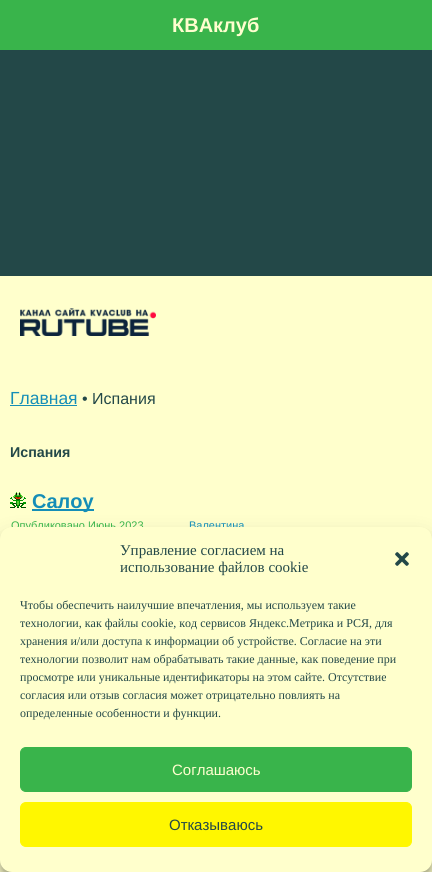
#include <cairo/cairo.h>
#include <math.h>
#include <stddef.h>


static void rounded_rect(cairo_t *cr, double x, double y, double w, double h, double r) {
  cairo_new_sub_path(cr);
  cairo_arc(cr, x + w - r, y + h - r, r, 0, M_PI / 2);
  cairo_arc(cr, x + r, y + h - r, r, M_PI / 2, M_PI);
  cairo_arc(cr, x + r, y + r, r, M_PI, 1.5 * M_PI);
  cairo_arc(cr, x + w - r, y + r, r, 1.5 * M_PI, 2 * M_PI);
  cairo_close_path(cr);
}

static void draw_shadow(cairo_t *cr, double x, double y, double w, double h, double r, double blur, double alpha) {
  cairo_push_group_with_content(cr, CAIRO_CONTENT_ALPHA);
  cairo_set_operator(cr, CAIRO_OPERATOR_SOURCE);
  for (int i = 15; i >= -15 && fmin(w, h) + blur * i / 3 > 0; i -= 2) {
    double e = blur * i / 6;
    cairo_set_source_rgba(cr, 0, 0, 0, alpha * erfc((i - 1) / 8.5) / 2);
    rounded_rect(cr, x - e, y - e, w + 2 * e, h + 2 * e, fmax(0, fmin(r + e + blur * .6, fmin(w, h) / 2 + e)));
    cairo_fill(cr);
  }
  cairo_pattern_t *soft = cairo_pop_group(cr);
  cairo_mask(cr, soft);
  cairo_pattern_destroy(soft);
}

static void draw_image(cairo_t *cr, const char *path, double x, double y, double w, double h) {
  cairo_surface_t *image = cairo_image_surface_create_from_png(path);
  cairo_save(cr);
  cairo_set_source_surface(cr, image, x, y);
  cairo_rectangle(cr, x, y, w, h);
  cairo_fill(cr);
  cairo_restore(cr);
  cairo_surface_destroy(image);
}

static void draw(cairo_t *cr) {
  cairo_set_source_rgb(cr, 35 / 255.0, 72 / 255.0, 72 / 255.0);
  cairo_paint(cr);
  cairo_set_source_rgb(cr, 57 / 255.0, 180 / 255.0, 75 / 255.0);
  cairo_rectangle(cr, 0, 0, 432, 50);
  cairo_fill(cr);
  cairo_set_source_rgb(cr, 1, 1, 204 / 255.0);
  cairo_rectangle(cr, 0, 276, 432, 596);
  cairo_fill(cr);
  draw_image(cr, "images/1.png", 20, 308, 136, 28);
  cairo_set_source_rgb(cr, 21 / 255.0, 142 / 255.0, 183 / 255.0);
  cairo_rectangle(cr, 10, 405, 67, 1);
  cairo_fill(cr);
  draw_image(cr, "images/2.png", 10, 492, 16, 16);
  cairo_rectangle(cr, 32, 509, 62, 2);
  cairo_fill(cr);
  cairo_set_source_rgb(cr, 0, 0, 0);
  draw_shadow(cr, 0, 533, 432, 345, 12, 3, 0.23);
  draw_shadow(cr, 0, 537, 432, 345, 12, 10, 0.19);
  cairo_select_font_face(cr, "Liberation Sans", CAIRO_FONT_SLANT_NORMAL, CAIRO_FONT_WEIGHT_BOLD);
  cairo_set_font_size(cr, 20);
  cairo_set_source_rgb(cr, 1, 254 / 255.0, 207 / 255.0);
  cairo_move_to(cr, 172, 32);
  cairo_show_text(cr, "КВАклуб");
  cairo_select_font_face(cr, "Liberation Sans", CAIRO_FONT_SLANT_NORMAL, CAIRO_FONT_WEIGHT_NORMAL);
  cairo_set_font_size(cr, 17.5);
  cairo_set_source_rgb(cr, 21 / 255.0, 142 / 255.0, 183 / 255.0);
  cairo_move_to(cr, 10, 404);
  cairo_show_text(cr, "Главная");
  cairo_set_font_size(cr, 16);
  cairo_set_source_rgb(cr, 35 / 255.0, 72 / 255.0, 72 / 255.0);
  cairo_move_to(cr, 82, 404);
  cairo_show_text(cr, "• Испания");
  cairo_select_font_face(cr, "Liberation Sans", CAIRO_FONT_SLANT_NORMAL, CAIRO_FONT_WEIGHT_BOLD);
  cairo_set_font_size(cr, 14.25);
  cairo_move_to(cr, 10, 457);
  cairo_show_text(cr, "Испания");
  cairo_set_font_size(cr, 20);
  cairo_set_source_rgb(cr, 21 / 255.0, 142 / 255.0, 183 / 255.0);
  cairo_move_to(cr, 32, 508);
  cairo_show_text(cr, "Салоу");
  cairo_select_font_face(cr, "Liberation Sans", CAIRO_FONT_SLANT_NORMAL, CAIRO_FONT_WEIGHT_NORMAL);
  cairo_set_font_size(cr, 11);
  cairo_set_source_rgb(cr, 57 / 255.0, 180 / 255.0, 75 / 255.0);
  cairo_move_to(cr, 11, 529);
  cairo_show_text(cr, "Опубликовано Июнь 2023");
  cairo_set_source_rgb(cr, 21 / 255.0, 142 / 255.0, 183 / 255.0);
  cairo_move_to(cr, 189, 529);
  cairo_show_text(cr, "Валентина");
  cairo_set_source_rgb(cr, 1, 1, 204 / 255.0);
  rounded_rect(cr, 0, 527, 432, 345, 12);
  cairo_fill(cr);
  cairo_select_font_face(cr, "Liberation Serif", CAIRO_FONT_SLANT_NORMAL, CAIRO_FONT_WEIGHT_NORMAL);
  cairo_set_font_size(cr, 15);
  cairo_set_source_rgb(cr, 35 / 255.0, 72 / 255.0, 72 / 255.0);
  cairo_move_to(cr, 120, 555);
  cairo_show_text(cr, "Управление согласием на");
  cairo_move_to(cr, 120, 572);
  cairo_show_text(cr, "использование файлов cookie");
  draw_image(cr, "images/3.png", 395, 552, 14, 14);
  cairo_set_font_size(cr, 12);
  cairo_move_to(cr, 20, 609);
  cairo_show_text(cr, "Чтобы обеспечить наилучшие впечатления, мы используем такие");
  cairo_move_to(cr, 20, 627);
  cairo_show_text(cr, "технологии, как файлы cookie, код сервисов Яндекс.Метрика и РСЯ, для");
  cairo_move_to(cr, 20, 645);
  cairo_show_text(cr, "хранения и/или доступа к информации об устройстве. Согласие на эти");
  cairo_move_to(cr, 20, 663);
  cairo_show_text(cr, "технологии позволит нам обрабатывать такие данные, как поведение при");
  cairo_move_to(cr, 20, 681);
  cairo_show_text(cr, "просмотре или уникальные идентификаторы на этом сайте. Отсутствие");
  cairo_move_to(cr, 20, 699);
  cairo_show_text(cr, "согласия или отзыв согласия может отрицательно повлиять на");
  cairo_move_to(cr, 20, 717);
  cairo_show_text(cr, "определенные особенности и функции.");
  cairo_set_source_rgb(cr, 57 / 255.0, 180 / 255.0, 75 / 255.0);
  rounded_rect(cr, 20.5, 747.5, 391, 44, 5.5);
  cairo_fill_preserve(cr);
  cairo_set_line_width(cr, 1);
  cairo_stroke(cr);
  cairo_select_font_face(cr, "Liberation Sans", CAIRO_FONT_SLANT_NORMAL, CAIRO_FONT_WEIGHT_NORMAL);
  cairo_set_font_size(cr, 15);
  cairo_set_source_rgb(cr, 1, 254 / 255.0, 207 / 255.0);
  cairo_move_to(cr, 172, 775);
  cairo_show_text(cr, "Соглашаюсь");
  cairo_set_source_rgb(cr, 1, 247 / 255.0, 0);
  rounded_rect(cr, 20.5, 802.5, 391, 44, 5.5);
  cairo_fill_preserve(cr);
  cairo_stroke(cr);
  cairo_set_source_rgb(cr, 35 / 255.0, 72 / 255.0, 72 / 255.0);
  cairo_move_to(cr, 169, 830);
  cairo_show_text(cr, "Отказываюсь");
}

int main(void) {
  cairo_surface_t *surface = cairo_image_surface_create(CAIRO_FORMAT_RGB24, 432, 872);
  cairo_t *cr = cairo_create(surface);
  cairo_font_options_t *options = cairo_font_options_create();
  cairo_font_options_set_hint_metrics(options, CAIRO_HINT_METRICS_OFF);
  cairo_font_options_set_hint_style(options, CAIRO_HINT_STYLE_NONE);
  cairo_set_font_options(cr, options);
  cairo_set_miter_limit(cr, 4);
  draw(cr);
  cairo_surface_write_to_png(surface, "out.png");
  cairo_font_options_destroy(options);
  cairo_destroy(cr);
  cairo_surface_destroy(surface);
  return 0;
}
